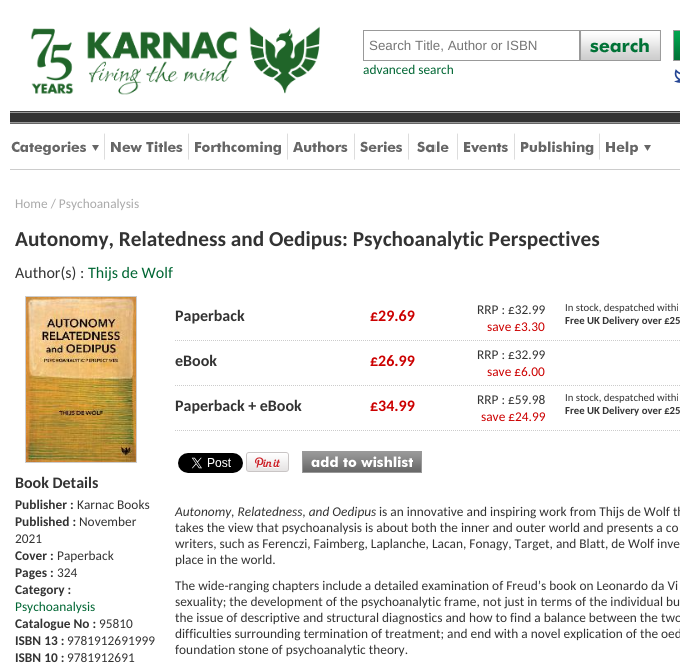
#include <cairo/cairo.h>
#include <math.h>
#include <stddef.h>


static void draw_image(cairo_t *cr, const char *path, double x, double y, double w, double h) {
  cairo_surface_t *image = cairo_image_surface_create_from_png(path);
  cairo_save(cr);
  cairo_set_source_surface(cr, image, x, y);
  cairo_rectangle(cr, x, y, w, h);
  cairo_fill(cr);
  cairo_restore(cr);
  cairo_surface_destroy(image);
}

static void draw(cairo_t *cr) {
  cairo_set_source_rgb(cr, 1, 1, 1);
  cairo_paint(cr);
  draw_image(cr, "images/1.png", 30, 26, 290, 69);
  cairo_rectangle(cr, 363.5, 30.5, 216, 30);
  cairo_set_source_rgb(cr, 153 / 255.0, 153 / 255.0, 153 / 255.0);
  cairo_set_line_width(cr, 1);
  cairo_stroke(cr);
  draw_image(cr, "images/2.png", 580, 30, 81, 31);
  draw_image(cr, "images/3.png", 673, 30, 7, 31);
  draw_image(cr, "images/4.png", 674, 69, 6, 14);
  draw_image(cr, "images/5.png", 10, 111, 670, 13);
  cairo_set_source_rgb(cr, 204 / 255.0, 204 / 255.0, 204 / 255.0);
  cairo_rectangle(cr, 10, 169, 670, 1);
  cairo_fill(cr);
  draw_image(cr, "images/6.png", 11, 141, 88, 14);
  draw_image(cr, "images/7.png", 104, 133, 1, 27);
  draw_image(cr, "images/8.png", 111, 141, 72, 11);
  draw_image(cr, "images/7.png", 188, 133, 1, 27);
  draw_image(cr, "images/9.png", 195, 141, 86, 14);
  draw_image(cr, "images/7.png", 287, 133, 1, 27);
  draw_image(cr, "images/10.png", 293, 141, 55, 11);
  draw_image(cr, "images/7.png", 354, 133, 1, 27);
  draw_image(cr, "images/11.png", 360, 141, 42, 11);
  draw_image(cr, "images/7.png", 408, 133, 1, 27);
  draw_image(cr, "images/12.png", 417, 141, 32, 12);
  draw_image(cr, "images/7.png", 457, 133, 1, 27);
  draw_image(cr, "images/13.png", 464, 142, 44, 10);
  draw_image(cr, "images/7.png", 514, 133, 1, 27);
  draw_image(cr, "images/14.png", 521, 141, 73, 14);
  draw_image(cr, "images/7.png", 599, 133, 1, 27);
  draw_image(cr, "images/15.png", 606, 141, 45, 14);
  cairo_rectangle(cr, 25.5, 296.5, 111, 166);
  cairo_stroke(cr);
  draw_image(cr, "images/16.png", 26, 297, 110, 165);
  cairo_new_path(cr);
  cairo_move_to(cr, 175, 340.5);
  cairo_line_to(cr, 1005, 340.5);
  cairo_set_dash(cr, (double[]){1, 1}, 2, 0);
  cairo_stroke(cr);
  cairo_new_path(cr);
  cairo_move_to(cr, 175, 385.5);
  cairo_line_to(cr, 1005, 385.5);
  cairo_stroke(cr);
  cairo_new_path(cr);
  cairo_move_to(cr, 175, 430.5);
  cairo_line_to(cr, 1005, 430.5);
  cairo_stroke(cr);
  draw_image(cr, "images/17.png", 178, 453, 65, 20);
  draw_image(cr, "images/18.png", 246, 452, 43, 20);
  draw_image(cr, "images/19.png", 302, 451, 120, 22);
  cairo_select_font_face(cr, "Liberation Sans", CAIRO_FONT_SLANT_NORMAL, CAIRO_FONT_WEIGHT_NORMAL);
  cairo_set_font_size(cr, 13.35);
  cairo_set_source_rgb(cr, 117 / 255.0, 117 / 255.0, 117 / 255.0);
  cairo_move_to(cr, 369, 50);
  cairo_show_text(cr, "Search Title, Author or ISBN");
  cairo_select_font_face(cr, "Carlito", CAIRO_FONT_SLANT_NORMAL, CAIRO_FONT_WEIGHT_NORMAL);
  cairo_set_source_rgb(cr, 0, 102 / 255.0, 51 / 255.0);
  cairo_move_to(cr, 363, 74);
  cairo_show_text(cr, "advanced search");
  cairo_set_source_rgb(cr, 170 / 255.0, 170 / 255.0, 170 / 255.0);
  cairo_move_to(cr, 15, 208);
  cairo_show_text(cr, "Home / Psychoanalysis");
  cairo_select_font_face(cr, "Carlito", CAIRO_FONT_SLANT_NORMAL, CAIRO_FONT_WEIGHT_BOLD);
  cairo_set_font_size(cr, 21.3);
  cairo_set_source_rgb(cr, 51 / 255.0, 51 / 255.0, 51 / 255.0);
  cairo_move_to(cr, 15, 246);
  cairo_show_text(cr, "Autonomy, Relatedness and Oedipus: Psychoanalytic Perspectives");
  cairo_select_font_face(cr, "Carlito", CAIRO_FONT_SLANT_NORMAL, CAIRO_FONT_WEIGHT_NORMAL);
  cairo_set_font_size(cr, 16);
  cairo_move_to(cr, 15, 278);
  cairo_show_text(cr, "Author(s) :");
  cairo_set_source_rgb(cr, 0, 102 / 255.0, 51 / 255.0);
  cairo_move_to(cr, 88, 278);
  cairo_show_text(cr, "Thijs de Wolf");
  cairo_select_font_face(cr, "Carlito", CAIRO_FONT_SLANT_NORMAL, CAIRO_FONT_WEIGHT_BOLD);
  cairo_set_source_rgb(cr, 51 / 255.0, 51 / 255.0, 51 / 255.0);
  cairo_move_to(cr, 15, 488);
  cairo_show_text(cr, "Book Details");
  cairo_set_font_size(cr, 13.35);
  cairo_move_to(cr, 15, 509);
  cairo_show_text(cr, "Publisher :");
  cairo_select_font_face(cr, "Carlito", CAIRO_FONT_SLANT_NORMAL, CAIRO_FONT_WEIGHT_NORMAL);
  cairo_move_to(cr, 77, 509);
  cairo_show_text(cr, "Karnac Books");
  cairo_select_font_face(cr, "Carlito", CAIRO_FONT_SLANT_NORMAL, CAIRO_FONT_WEIGHT_BOLD);
  cairo_move_to(cr, 15, 526);
  cairo_show_text(cr, "Published :");
  cairo_select_font_face(cr, "Carlito", CAIRO_FONT_SLANT_NORMAL, CAIRO_FONT_WEIGHT_NORMAL);
  cairo_move_to(cr, 79, 526);
  cairo_show_text(cr, "November");
  cairo_move_to(cr, 15, 543);
  cairo_show_text(cr, "2021");
  cairo_select_font_face(cr, "Carlito", CAIRO_FONT_SLANT_NORMAL, CAIRO_FONT_WEIGHT_BOLD);
  cairo_move_to(cr, 15, 560);
  cairo_show_text(cr, "Cover :");
  cairo_select_font_face(cr, "Carlito", CAIRO_FONT_SLANT_NORMAL, CAIRO_FONT_WEIGHT_NORMAL);
  cairo_move_to(cr, 57, 560);
  cairo_show_text(cr, "Paperback");
  cairo_select_font_face(cr, "Carlito", CAIRO_FONT_SLANT_NORMAL, CAIRO_FONT_WEIGHT_BOLD);
  cairo_move_to(cr, 15, 577);
  cairo_show_text(cr, "Pages :");
  cairo_select_font_face(cr, "Carlito", CAIRO_FONT_SLANT_NORMAL, CAIRO_FONT_WEIGHT_NORMAL);
  cairo_move_to(cr, 57, 577);
  cairo_show_text(cr, "324");
  cairo_select_font_face(cr, "Carlito", CAIRO_FONT_SLANT_NORMAL, CAIRO_FONT_WEIGHT_BOLD);
  cairo_move_to(cr, 15, 594);
  cairo_show_text(cr, "Category :");
  cairo_select_font_face(cr, "Carlito", CAIRO_FONT_SLANT_NORMAL, CAIRO_FONT_WEIGHT_NORMAL);
  cairo_set_source_rgb(cr, 0, 102 / 255.0, 51 / 255.0);
  cairo_move_to(cr, 15, 611);
  cairo_show_text(cr, "Psychoanalysis");
  cairo_select_font_face(cr, "Carlito", CAIRO_FONT_SLANT_NORMAL, CAIRO_FONT_WEIGHT_BOLD);
  cairo_set_source_rgb(cr, 51 / 255.0, 51 / 255.0, 51 / 255.0);
  cairo_move_to(cr, 15, 628);
  cairo_show_text(cr, "Catalogue No :");
  cairo_select_font_face(cr, "Carlito", CAIRO_FONT_SLANT_NORMAL, CAIRO_FONT_WEIGHT_NORMAL);
  cairo_move_to(cr, 99, 628);
  cairo_show_text(cr, "95810");
  cairo_select_font_face(cr, "Carlito", CAIRO_FONT_SLANT_NORMAL, CAIRO_FONT_WEIGHT_BOLD);
  cairo_move_to(cr, 15, 645);
  cairo_show_text(cr, "ISBN 13 :");
  cairo_select_font_face(cr, "Carlito", CAIRO_FONT_SLANT_NORMAL, CAIRO_FONT_WEIGHT_NORMAL);
  cairo_move_to(cr, 67, 645);
  cairo_show_text(cr, "9781912691999");
  cairo_select_font_face(cr, "Carlito", CAIRO_FONT_SLANT_NORMAL, CAIRO_FONT_WEIGHT_BOLD);
  cairo_move_to(cr, 15, 662);
  cairo_show_text(cr, "ISBN 10 :");
  cairo_select_font_face(cr, "Carlito", CAIRO_FONT_SLANT_NORMAL, CAIRO_FONT_WEIGHT_NORMAL);
  cairo_move_to(cr, 67, 662);
  cairo_show_text(cr, "9781912691");
  cairo_select_font_face(cr, "Carlito", CAIRO_FONT_SLANT_NORMAL, CAIRO_FONT_WEIGHT_BOLD);
  cairo_set_font_size(cr, 16);
  cairo_move_to(cr, 175, 321);
  cairo_show_text(cr, "Paperback");
  cairo_set_source_rgb(cr, 204 / 255.0, 0, 0);
  cairo_move_to(cr, 370, 321);
  cairo_show_text(cr, "£29.69");
  cairo_select_font_face(cr, "Carlito", CAIRO_FONT_SLANT_NORMAL, CAIRO_FONT_WEIGHT_NORMAL);
  cairo_set_font_size(cr, 13.35);
  cairo_set_source_rgb(cr, 51 / 255.0, 51 / 255.0, 51 / 255.0);
  cairo_move_to(cr, 477, 314);
  cairo_show_text(cr, "RRP : £32.99");
  cairo_set_source_rgb(cr, 204 / 255.0, 0, 0);
  cairo_move_to(cr, 487, 331);
  cairo_show_text(cr, "save £3.30");
  cairo_set_font_size(cr, 10.75);
  cairo_set_source_rgb(cr, 51 / 255.0, 51 / 255.0, 51 / 255.0);
  cairo_move_to(cr, 565, 311);
  cairo_show_text(cr, "In stock, despatched withi");
  cairo_select_font_face(cr, "Carlito", CAIRO_FONT_SLANT_NORMAL, CAIRO_FONT_WEIGHT_BOLD);
  cairo_move_to(cr, 565, 324);
  cairo_show_text(cr, "Free UK Delivery over £25");
  cairo_set_font_size(cr, 16);
  cairo_move_to(cr, 175, 366);
  cairo_show_text(cr, "eBook");
  cairo_set_source_rgb(cr, 204 / 255.0, 0, 0);
  cairo_move_to(cr, 370, 366);
  cairo_show_text(cr, "£26.99");
  cairo_select_font_face(cr, "Carlito", CAIRO_FONT_SLANT_NORMAL, CAIRO_FONT_WEIGHT_NORMAL);
  cairo_set_font_size(cr, 13.35);
  cairo_set_source_rgb(cr, 51 / 255.0, 51 / 255.0, 51 / 255.0);
  cairo_move_to(cr, 477, 359);
  cairo_show_text(cr, "RRP : £32.99");
  cairo_set_source_rgb(cr, 204 / 255.0, 0, 0);
  cairo_move_to(cr, 487, 376);
  cairo_show_text(cr, "save £6.00");
  cairo_select_font_face(cr, "Carlito", CAIRO_FONT_SLANT_NORMAL, CAIRO_FONT_WEIGHT_BOLD);
  cairo_set_font_size(cr, 16);
  cairo_set_source_rgb(cr, 51 / 255.0, 51 / 255.0, 51 / 255.0);
  cairo_move_to(cr, 175, 411);
  cairo_show_text(cr, "Paperback + eBook");
  cairo_set_source_rgb(cr, 204 / 255.0, 0, 0);
  cairo_move_to(cr, 370, 411);
  cairo_show_text(cr, "£34.99");
  cairo_select_font_face(cr, "Carlito", CAIRO_FONT_SLANT_NORMAL, CAIRO_FONT_WEIGHT_NORMAL);
  cairo_set_font_size(cr, 13.35);
  cairo_set_source_rgb(cr, 51 / 255.0, 51 / 255.0, 51 / 255.0);
  cairo_move_to(cr, 477, 404);
  cairo_show_text(cr, "RRP : £59.98");
  cairo_set_source_rgb(cr, 204 / 255.0, 0, 0);
  cairo_move_to(cr, 481, 421);
  cairo_show_text(cr, "save £24.99");
  cairo_set_font_size(cr, 10.75);
  cairo_set_source_rgb(cr, 51 / 255.0, 51 / 255.0, 51 / 255.0);
  cairo_move_to(cr, 565, 401);
  cairo_show_text(cr, "In stock, despatched withi");
  cairo_select_font_face(cr, "Carlito", CAIRO_FONT_SLANT_NORMAL, CAIRO_FONT_WEIGHT_BOLD);
  cairo_move_to(cr, 565, 414);
  cairo_show_text(cr, "Free UK Delivery over £25");
  cairo_select_font_face(cr, "Carlito", CAIRO_FONT_SLANT_ITALIC, CAIRO_FONT_WEIGHT_NORMAL);
  cairo_set_font_size(cr, 13.35);
  cairo_move_to(cr, 175, 516);
  cairo_show_text(cr, "Autonomy, Relatedness, and Oedipus");
  cairo_select_font_face(cr, "Carlito", CAIRO_FONT_SLANT_NORMAL, CAIRO_FONT_WEIGHT_NORMAL);
  cairo_move_to(cr, 379, 516);
  cairo_show_text(cr, "is an innovative and inspiring work from Thijs de Wolf th");
  cairo_move_to(cr, 175, 532);
  cairo_show_text(cr, "takes the view that psychoanalysis is about both the inner and outer world and presents a co");
  cairo_move_to(cr, 175, 548);
  cairo_show_text(cr, "writers, such as Ferenczi, Faimberg, Laplanche, Lacan, Fonagy, Target, and Blatt, de Wolf inve");
  cairo_move_to(cr, 175, 564);
  cairo_show_text(cr, "place in the world.");
  cairo_move_to(cr, 175, 590);
  cairo_show_text(cr, "The wide-ranging chapters include a detailed examination of Freud’s book on Leonardo da Vi");
  cairo_move_to(cr, 175, 606);
  cairo_show_text(cr, "sexuality; the development of the psychoanalytic frame, not just in terms of the individual bu");
  cairo_move_to(cr, 175, 622);
  cairo_show_text(cr, "the issue of descriptive and structural diagnostics and how to find a balance between the two");
  cairo_move_to(cr, 175, 638);
  cairo_show_text(cr, "difficulties surrounding termination of treatment; and end with a novel explication of the oed");
  cairo_move_to(cr, 175, 654);
  cairo_show_text(cr, "foundation stone of psychoanalytic theory.");
}

int main(void) {
  cairo_surface_t *surface = cairo_image_surface_create(CAIRO_FORMAT_RGB24, 680, 666);
  cairo_t *cr = cairo_create(surface);
  cairo_font_options_t *options = cairo_font_options_create();
  cairo_font_options_set_hint_metrics(options, CAIRO_HINT_METRICS_OFF);
  cairo_font_options_set_hint_style(options, CAIRO_HINT_STYLE_NONE);
  cairo_set_font_options(cr, options);
  cairo_set_miter_limit(cr, 4);
  draw(cr);
  cairo_surface_write_to_png(surface, "out.png");
  cairo_font_options_destroy(options);
  cairo_destroy(cr);
  cairo_surface_destroy(surface);
  return 0;
}
